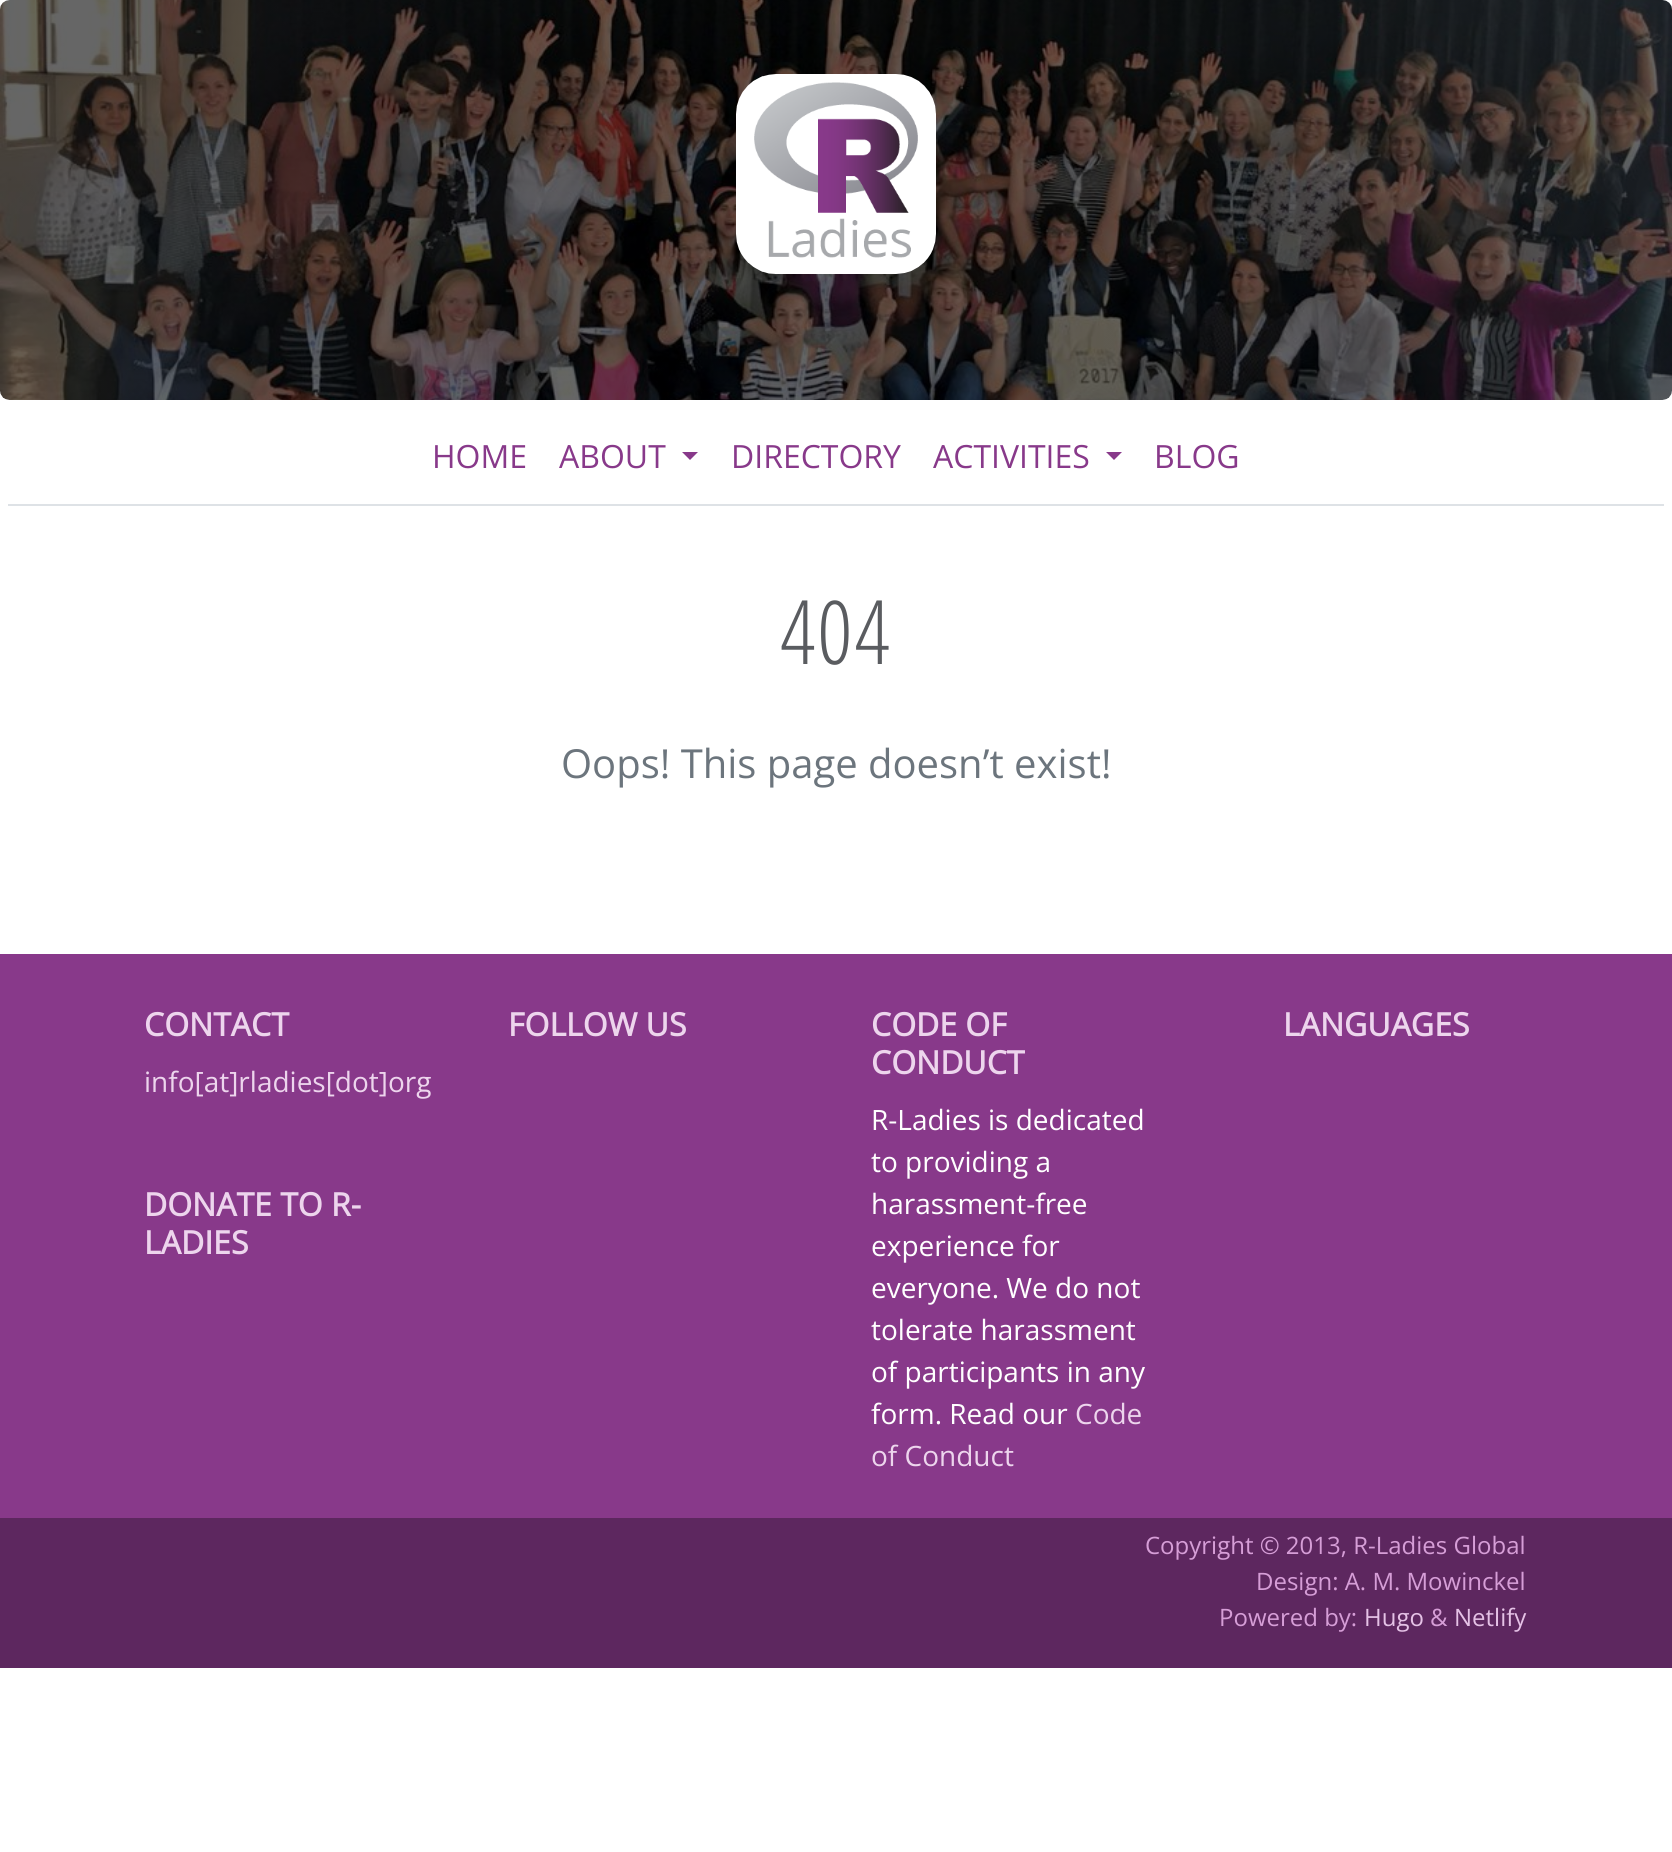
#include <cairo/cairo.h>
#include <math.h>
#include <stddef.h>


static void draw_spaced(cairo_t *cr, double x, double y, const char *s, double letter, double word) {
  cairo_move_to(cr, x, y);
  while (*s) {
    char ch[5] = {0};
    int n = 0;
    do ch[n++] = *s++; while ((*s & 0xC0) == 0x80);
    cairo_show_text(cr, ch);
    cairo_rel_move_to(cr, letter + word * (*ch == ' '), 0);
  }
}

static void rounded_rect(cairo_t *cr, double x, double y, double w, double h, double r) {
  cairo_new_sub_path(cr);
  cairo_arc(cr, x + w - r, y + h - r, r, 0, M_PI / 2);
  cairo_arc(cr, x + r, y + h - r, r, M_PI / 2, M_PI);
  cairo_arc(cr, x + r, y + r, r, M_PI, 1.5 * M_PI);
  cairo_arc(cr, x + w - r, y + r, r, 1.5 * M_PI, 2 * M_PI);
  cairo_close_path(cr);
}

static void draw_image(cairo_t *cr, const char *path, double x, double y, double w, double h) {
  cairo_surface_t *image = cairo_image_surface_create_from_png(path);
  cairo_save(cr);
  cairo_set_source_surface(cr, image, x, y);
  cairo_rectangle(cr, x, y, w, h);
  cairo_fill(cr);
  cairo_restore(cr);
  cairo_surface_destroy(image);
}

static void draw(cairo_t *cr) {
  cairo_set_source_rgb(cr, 1, 1, 1);
  cairo_paint(cr);
  cairo_set_source_rgb(cr, 233 / 255.0, 236 / 255.0, 239 / 255.0);
  rounded_rect(cr, 0, 0, 1672, 400, 10);
  cairo_fill(cr);
  draw_image(cr, "images/1.png", 0, 0, 1672, 400);
  draw_image(cr, "images/2.png", 736, 74, 200, 200);
  cairo_set_source_rgb(cr, 222 / 255.0, 226 / 255.0, 230 / 255.0);
  cairo_rectangle(cr, 8, 504, 1656, 2);
  cairo_fill(cr);
  cairo_set_source_rgb(cr, 136 / 255.0, 57 / 255.0, 138 / 255.0);
  cairo_new_path(cr);
  cairo_move_to(cr, 682, 452);
  cairo_line_to(cr, 698, 452);
  cairo_line_to(cr, 690, 460);
  cairo_close_path(cr);
  cairo_fill(cr);
  cairo_new_path(cr);
  cairo_move_to(cr, 1106, 452);
  cairo_line_to(cr, 1122, 452);
  cairo_line_to(cr, 1114, 460);
  cairo_close_path(cr);
  cairo_fill(cr);
  cairo_rectangle(cr, 0, 954, 1672, 564);
  cairo_fill(cr);
  cairo_set_source_rgb(cr, 93 / 255.0, 39 / 255.0, 95 / 255.0);
  cairo_rectangle(cr, 0, 1518, 1672, 150);
  cairo_fill(cr);
  cairo_select_font_face(cr, "Open Sans", CAIRO_FONT_SLANT_NORMAL, CAIRO_FONT_WEIGHT_NORMAL);
  cairo_set_font_size(cr, 32);
  cairo_set_source_rgb(cr, 136 / 255.0, 57 / 255.0, 138 / 255.0);
  cairo_move_to(cr, 432, 468);
  cairo_show_text(cr, "HOME");
  cairo_move_to(cr, 559, 468);
  cairo_show_text(cr, "ABOUT");
  cairo_move_to(cr, 731, 468);
  cairo_show_text(cr, "DIRECTORY");
  cairo_move_to(cr, 933, 468);
  cairo_show_text(cr, "ACTIVITIES");
  cairo_move_to(cr, 1154, 468);
  cairo_show_text(cr, "BLOG");
  cairo_select_font_face(cr, "Open Sans Condensed Light", CAIRO_FONT_SLANT_NORMAL, CAIRO_FONT_WEIGHT_NORMAL);
  cairo_set_font_size(cr, 88);
  cairo_set_source_rgb(cr, 90 / 255.0, 92 / 255.0, 96 / 255.0);
  draw_spaced(cr, 780, 664, "404", 2, 0);
  cairo_select_font_face(cr, "Open Sans", CAIRO_FONT_SLANT_NORMAL, CAIRO_FONT_WEIGHT_NORMAL);
  cairo_set_font_size(cr, 40);
  cairo_set_source_rgb(cr, 108 / 255.0, 117 / 255.0, 125 / 255.0);
  cairo_move_to(cr, 561, 778);
  cairo_show_text(cr, "Oops! This page doesn’t exist!");
  cairo_select_font_face(cr, "Open Sans", CAIRO_FONT_SLANT_NORMAL, CAIRO_FONT_WEIGHT_BOLD);
  cairo_set_font_size(cr, 32);
  cairo_set_source_rgb(cr, 237 / 255.0, 213 / 255.0, 237 / 255.0);
  cairo_move_to(cr, 144, 1036);
  cairo_show_text(cr, "CONTACT");
  cairo_select_font_face(cr, "Open Sans", CAIRO_FONT_SLANT_NORMAL, CAIRO_FONT_WEIGHT_NORMAL);
  cairo_set_font_size(cr, 28);
  cairo_move_to(cr, 144, 1092);
  cairo_show_text(cr, "info[at]rladies[dot]org");
  cairo_select_font_face(cr, "Open Sans", CAIRO_FONT_SLANT_NORMAL, CAIRO_FONT_WEIGHT_BOLD);
  cairo_set_font_size(cr, 32);
  cairo_move_to(cr, 144, 1216);
  cairo_show_text(cr, "DONATE TO R-");
  cairo_move_to(cr, 144, 1254);
  cairo_show_text(cr, "LADIES");
  cairo_move_to(cr, 508, 1036);
  cairo_show_text(cr, "FOLLOW US");
  cairo_move_to(cr, 871, 1036);
  cairo_show_text(cr, "CODE OF");
  cairo_move_to(cr, 871, 1074);
  cairo_show_text(cr, "CONDUCT");
  cairo_select_font_face(cr, "Open Sans", CAIRO_FONT_SLANT_NORMAL, CAIRO_FONT_WEIGHT_NORMAL);
  cairo_set_font_size(cr, 28);
  cairo_set_source_rgb(cr, 1, 1, 1);
  cairo_move_to(cr, 871, 1130);
  cairo_show_text(cr, "R-Ladies is dedicated");
  cairo_move_to(cr, 871, 1172);
  cairo_show_text(cr, "to providing a");
  cairo_move_to(cr, 871, 1214);
  cairo_show_text(cr, "harassment-free");
  cairo_move_to(cr, 871, 1256);
  cairo_show_text(cr, "experience for");
  cairo_move_to(cr, 871, 1298);
  cairo_show_text(cr, "everyone. We do not");
  cairo_move_to(cr, 871, 1340);
  cairo_show_text(cr, "tolerate harassment");
  cairo_move_to(cr, 871, 1382);
  cairo_show_text(cr, "of participants in any");
  cairo_move_to(cr, 871, 1424);
  cairo_show_text(cr, "form. Read our");
  cairo_set_source_rgb(cr, 237 / 255.0, 213 / 255.0, 237 / 255.0);
  cairo_move_to(cr, 1075, 1424);
  cairo_show_text(cr, "Code");
  cairo_move_to(cr, 871, 1466);
  cairo_show_text(cr, "of Conduct");
  cairo_select_font_face(cr, "Open Sans", CAIRO_FONT_SLANT_NORMAL, CAIRO_FONT_WEIGHT_BOLD);
  cairo_set_font_size(cr, 32);
  cairo_move_to(cr, 1283, 1036);
  cairo_show_text(cr, "LANGUAGES");
  cairo_select_font_face(cr, "Open Sans", CAIRO_FONT_SLANT_NORMAL, CAIRO_FONT_WEIGHT_NORMAL);
  cairo_set_font_size(cr, 24);
  cairo_set_source_rgb(cr, 214 / 255.0, 158 / 255.0, 215 / 255.0);
  cairo_move_to(cr, 1145, 1554);
  cairo_show_text(cr, "Copyright © 2013, R-Ladies Global");
  cairo_move_to(cr, 1256, 1590);
  cairo_show_text(cr, "Design: A. M. Mowinckel");
  cairo_move_to(cr, 1219, 1626);
  cairo_show_text(cr, "Powered by:");
  cairo_set_source_rgb(cr, 229 / 255.0, 194 / 255.0, 230 / 255.0);
  cairo_move_to(cr, 1364, 1626);
  cairo_show_text(cr, "Hugo");
  cairo_set_source_rgb(cr, 214 / 255.0, 158 / 255.0, 215 / 255.0);
  cairo_move_to(cr, 1430, 1626);
  cairo_show_text(cr, "&");
  cairo_set_source_rgb(cr, 229 / 255.0, 194 / 255.0, 230 / 255.0);
  cairo_move_to(cr, 1454, 1626);
  cairo_show_text(cr, "Netlify");
}

int main(void) {
  cairo_surface_t *surface = cairo_image_surface_create(CAIRO_FORMAT_RGB24, 1672, 1852);
  cairo_t *cr = cairo_create(surface);
  cairo_font_options_t *options = cairo_font_options_create();
  cairo_font_options_set_hint_metrics(options, CAIRO_HINT_METRICS_OFF);
  cairo_font_options_set_hint_style(options, CAIRO_HINT_STYLE_NONE);
  cairo_set_font_options(cr, options);
  cairo_set_miter_limit(cr, 4);
  draw(cr);
  cairo_surface_write_to_png(surface, "out.png");
  cairo_font_options_destroy(options);
  cairo_destroy(cr);
  cairo_surface_destroy(surface);
  return 0;
}
